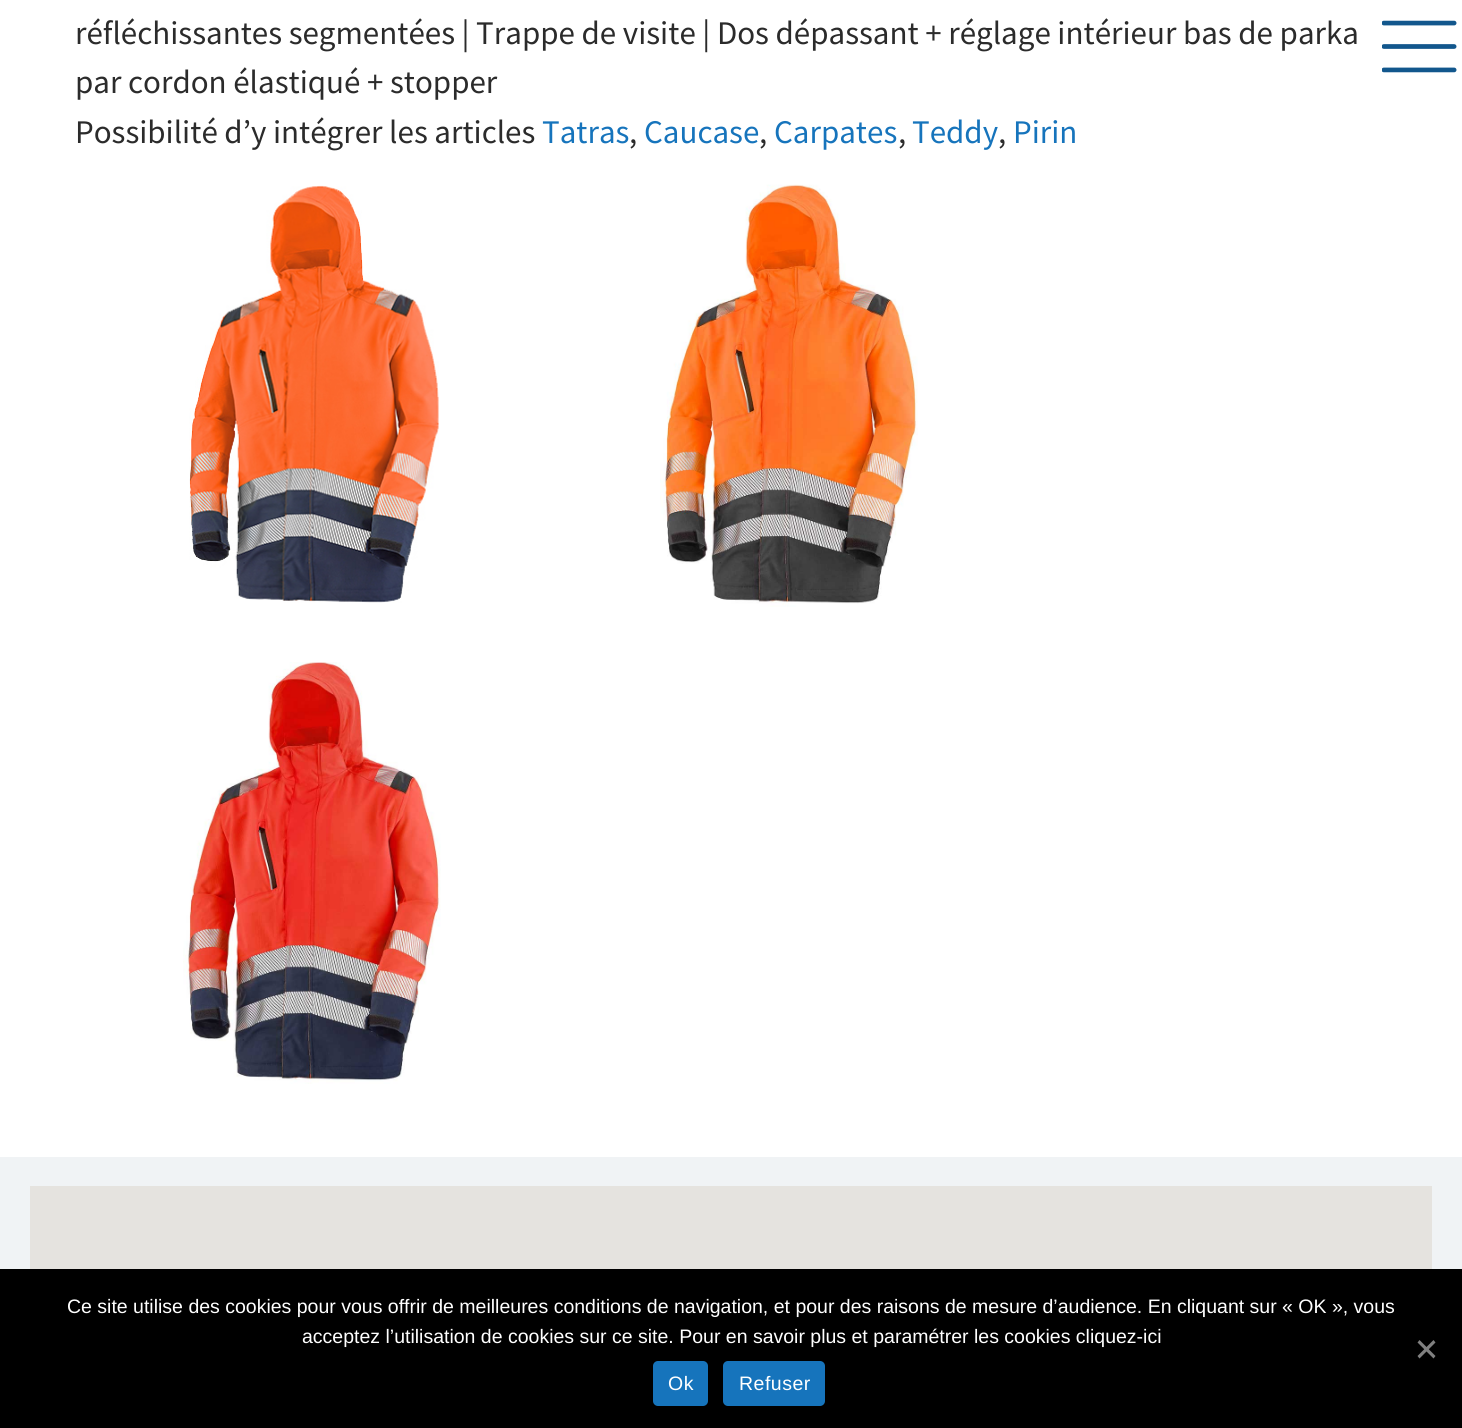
#include <cairo/cairo.h>
#include <math.h>
#include <stddef.h>


static void draw_spaced(cairo_t *cr, double x, double y, const char *s, double letter, double word) {
  cairo_move_to(cr, x, y);
  while (*s) {
    char ch[5] = {0};
    int n = 0;
    do ch[n++] = *s++; while ((*s & 0xC0) == 0x80);
    cairo_show_text(cr, ch);
    cairo_rel_move_to(cr, letter + word * (*ch == ' '), 0);
  }
}

static void rounded_rect(cairo_t *cr, double x, double y, double w, double h, double r) {
  cairo_new_sub_path(cr);
  cairo_arc(cr, x + w - r, y + h - r, r, 0, M_PI / 2);
  cairo_arc(cr, x + r, y + h - r, r, M_PI / 2, M_PI);
  cairo_arc(cr, x + r, y + r, r, M_PI, 1.5 * M_PI);
  cairo_arc(cr, x + w - r, y + r, r, 1.5 * M_PI, 2 * M_PI);
  cairo_close_path(cr);
}

static void draw_image(cairo_t *cr, const char *path, double x, double y, double w, double h) {
  cairo_surface_t *image = cairo_image_surface_create_from_png(path);
  cairo_save(cr);
  cairo_set_source_surface(cr, image, x, y);
  cairo_rectangle(cr, x, y, w, h);
  cairo_fill(cr);
  cairo_restore(cr);
  cairo_surface_destroy(image);
}

static void draw(cairo_t *cr) {
  cairo_set_source_rgb(cr, 1, 1, 1);
  cairo_paint(cr);
  draw_image(cr, "images/1.png", 189, 185, 250, 418);
  draw_image(cr, "images/2.png", 660, 184, 258, 423);
  draw_image(cr, "images/3.png", 183, 662, 258, 422);
  draw_image(cr, "images/4.png", 1382, 20, 75, 53);
  cairo_set_source_rgb(cr, 240 / 255.0, 243 / 255.0, 245 / 255.0);
  cairo_rectangle(cr, 0, 1157, 1462, 112);
  cairo_fill(cr);
  cairo_set_source_rgb(cr, 229 / 255.0, 227 / 255.0, 223 / 255.0);
  cairo_rectangle(cr, 30, 1186, 1402, 83);
  cairo_fill(cr);
  cairo_set_source_rgb(cr, 0, 0, 0);
  cairo_rectangle(cr, 0, 1269, 1462, 159);
  cairo_fill(cr);
  cairo_set_source_rgb(cr, 128 / 255.0, 128 / 255.0, 128 / 255.0);
  cairo_new_path(cr);
  cairo_move_to(cr, 1433.5, 1340);
  cairo_line_to(cr, 1435.5, 1342.5);
  cairo_line_to(cr, 1419.5, 1358.5);
  cairo_line_to(cr, 1417.5, 1356);
  cairo_close_path(cr);
  cairo_fill(cr);
  cairo_new_path(cr);
  cairo_move_to(cr, 1417.5, 1342.5);
  cairo_line_to(cr, 1419.5, 1340);
  cairo_line_to(cr, 1435.5, 1356);
  cairo_line_to(cr, 1433.5, 1358.5);
  cairo_close_path(cr);
  cairo_fill(cr);
  cairo_set_source_rgb(cr, 22 / 255.0, 116 / 255.0, 188 / 255.0);
  rounded_rect(cr, 653, 1361, 55, 45, 5);
  cairo_fill(cr);
  rounded_rect(cr, 723, 1361, 102, 45, 5);
  cairo_fill(cr);
  cairo_select_font_face(cr, "Source Sans Pro", CAIRO_FONT_SLANT_NORMAL, CAIRO_FONT_WEIGHT_NORMAL);
  cairo_set_font_size(cr, 33);
  cairo_set_source_rgb(cr, 43 / 255.0, 43 / 255.0, 43 / 255.0);
  cairo_move_to(cr, 75, 44);
  cairo_show_text(cr, "réfléchissantes segmentées | Trappe de visite | Dos dépassant + réglage intérieur bas de parka");
  cairo_move_to(cr, 75, 93);
  cairo_show_text(cr, "par cordon élastiqué + stopper");
  cairo_move_to(cr, 75, 143);
  cairo_show_text(cr, "Possibilité d’y intégrer les articles");
  cairo_set_source_rgb(cr, 22 / 255.0, 116 / 255.0, 188 / 255.0);
  cairo_move_to(cr, 542, 143);
  cairo_show_text(cr, "Tatras");
  cairo_set_source_rgb(cr, 43 / 255.0, 43 / 255.0, 43 / 255.0);
  cairo_move_to(cr, 629, 143);
  cairo_show_text(cr, ",");
  cairo_set_source_rgb(cr, 22 / 255.0, 116 / 255.0, 188 / 255.0);
  cairo_move_to(cr, 644, 143);
  cairo_show_text(cr, "Caucase");
  cairo_set_source_rgb(cr, 43 / 255.0, 43 / 255.0, 43 / 255.0);
  cairo_move_to(cr, 759, 143);
  cairo_show_text(cr, ",");
  cairo_set_source_rgb(cr, 22 / 255.0, 116 / 255.0, 188 / 255.0);
  cairo_move_to(cr, 774, 143);
  cairo_show_text(cr, "Carpates");
  cairo_set_source_rgb(cr, 43 / 255.0, 43 / 255.0, 43 / 255.0);
  cairo_move_to(cr, 898, 143);
  cairo_show_text(cr, ",");
  cairo_set_source_rgb(cr, 22 / 255.0, 116 / 255.0, 188 / 255.0);
  cairo_move_to(cr, 912, 143);
  cairo_show_text(cr, "Teddy");
  cairo_set_source_rgb(cr, 43 / 255.0, 43 / 255.0, 43 / 255.0);
  cairo_move_to(cr, 998, 143);
  cairo_show_text(cr, ",");
  cairo_set_source_rgb(cr, 22 / 255.0, 116 / 255.0, 188 / 255.0);
  cairo_move_to(cr, 1013, 143);
  cairo_show_text(cr, "Pirin");
  cairo_select_font_face(cr, "Liberation Sans", CAIRO_FONT_SLANT_NORMAL, CAIRO_FONT_WEIGHT_NORMAL);
  cairo_set_font_size(cr, 19.5);
  cairo_set_source_rgb(cr, 1, 1, 1);
  cairo_move_to(cr, 67, 1313);
  cairo_show_text(cr, "Ce site utilise des cookies pour vous offrir de meilleures conditions de navigation, et pour des raisons de mesure d’audience. En cliquant sur « OK », vous");
  cairo_move_to(cr, 302, 1343);
  cairo_show_text(cr, "acceptez l’utilisation de cookies sur ce site. Pour en savoir plus et paramétrer les cookies cliquez-ici");
  draw_spaced(cr, 668, 1390, "Ok", 0.5, 0);
  draw_spaced(cr, 739, 1390, "Refuser", 0.5, 0);
}

int main(void) {
  cairo_surface_t *surface = cairo_image_surface_create(CAIRO_FORMAT_RGB24, 1462, 1428);
  cairo_t *cr = cairo_create(surface);
  cairo_font_options_t *options = cairo_font_options_create();
  cairo_font_options_set_hint_metrics(options, CAIRO_HINT_METRICS_OFF);
  cairo_font_options_set_hint_style(options, CAIRO_HINT_STYLE_NONE);
  cairo_set_font_options(cr, options);
  cairo_set_miter_limit(cr, 4);
  draw(cr);
  cairo_surface_write_to_png(surface, "out.png");
  cairo_font_options_destroy(options);
  cairo_destroy(cr);
  cairo_surface_destroy(surface);
  return 0;
}
